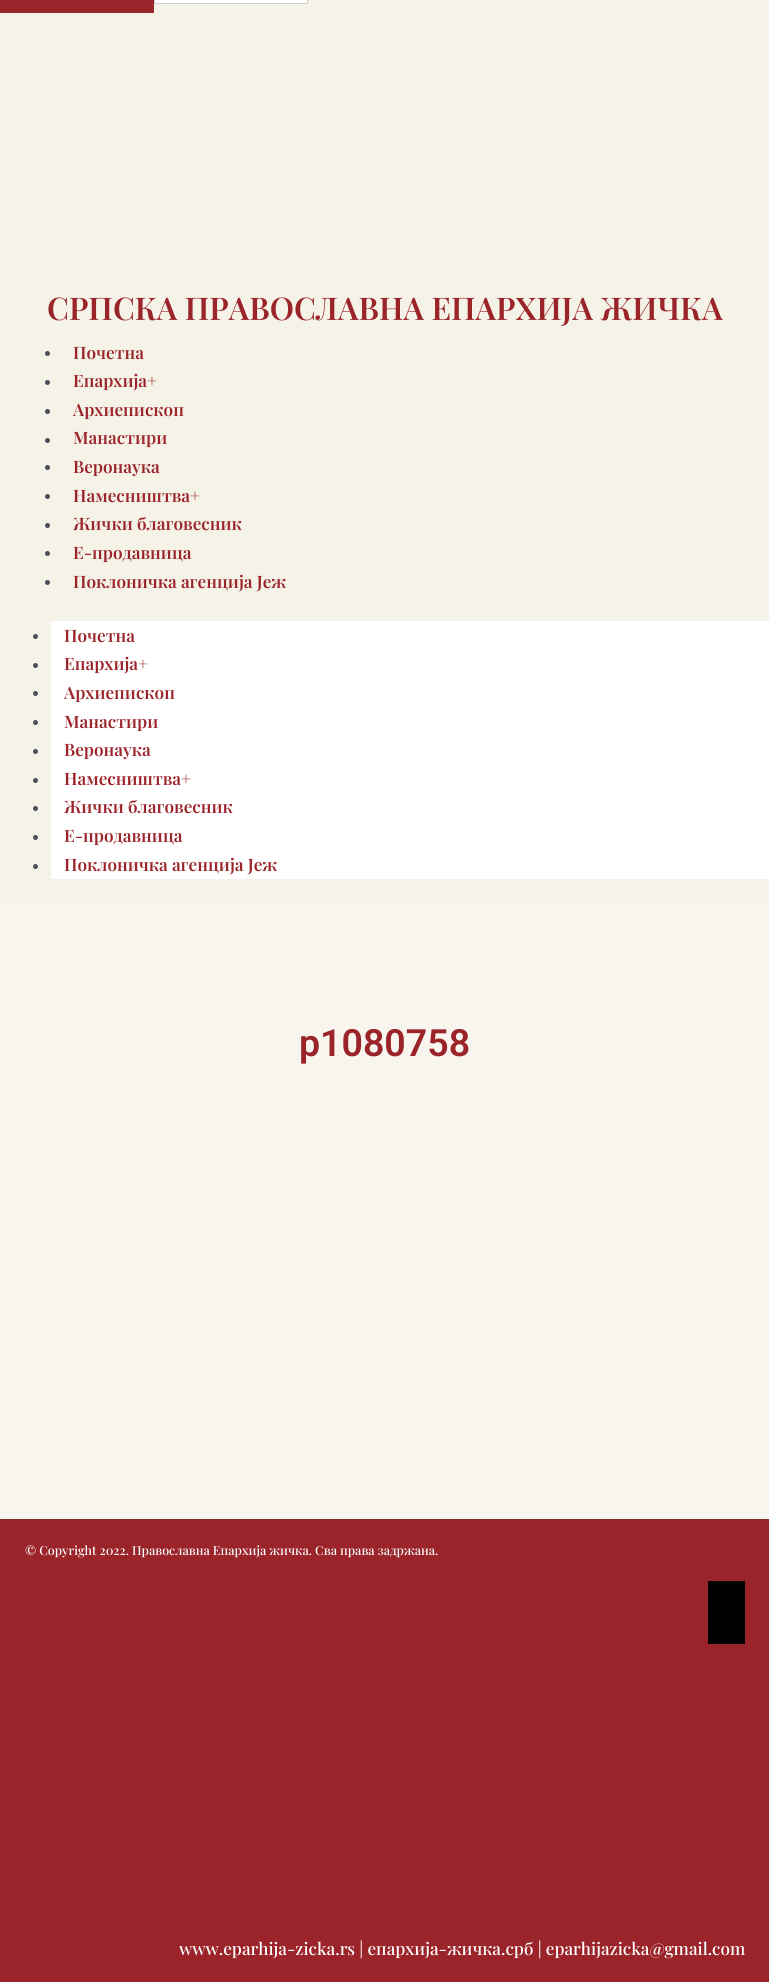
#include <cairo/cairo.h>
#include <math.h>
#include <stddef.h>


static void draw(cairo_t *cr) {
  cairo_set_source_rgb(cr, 247 / 255.0, 245 / 255.0, 237 / 255.0);
  cairo_paint(cr);
  cairo_set_source_rgb(cr, 245 / 255.0, 242 / 255.0, 232 / 255.0);
  cairo_rectangle(cr, 0, 0, 769, 905);
  cairo_fill(cr);
  cairo_set_source_rgb(cr, 154 / 255.0, 36 / 255.0, 42 / 255.0);
  cairo_rectangle(cr, 0, 0, 154, 13);
  cairo_fill(cr);
  cairo_set_source_rgb(cr, 1, 1, 1);
  cairo_rectangle(cr, 154.5, -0.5, 153, 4);
  cairo_fill_preserve(cr);
  cairo_set_source_rgb(cr, 204 / 255.0, 204 / 255.0, 204 / 255.0);
  cairo_set_line_width(cr, 1);
  cairo_stroke(cr);
  cairo_set_source_rgb(cr, 75 / 255.0, 79 / 255.0, 88 / 255.0);
  cairo_arc(cr, 47.5, 353.5, 2.5, 0, 2 * M_PI);
  cairo_fill(cr);
  cairo_arc(cr, 47.5, 382.5, 2.5, 0, 2 * M_PI);
  cairo_fill(cr);
  cairo_arc(cr, 47.5, 411.5, 2.5, 0, 2 * M_PI);
  cairo_fill(cr);
  cairo_arc(cr, 47.5, 440.5, 2.5, 0, 2 * M_PI);
  cairo_fill(cr);
  cairo_arc(cr, 47.5, 467.5, 2.5, 0, 2 * M_PI);
  cairo_fill(cr);
  cairo_arc(cr, 47.5, 496.5, 2.5, 0, 2 * M_PI);
  cairo_fill(cr);
  cairo_arc(cr, 47.5, 525.5, 2.5, 0, 2 * M_PI);
  cairo_fill(cr);
  cairo_arc(cr, 47.5, 553.5, 2.5, 0, 2 * M_PI);
  cairo_fill(cr);
  cairo_arc(cr, 47.5, 582.5, 2.5, 0, 2 * M_PI);
  cairo_fill(cr);
  cairo_set_source_rgb(cr, 1, 1, 1);
  cairo_rectangle(cr, 51, 621, 718, 258);
  cairo_fill(cr);
  cairo_set_source_rgb(cr, 75 / 255.0, 79 / 255.0, 88 / 255.0);
  cairo_arc(cr, 35.5, 636.5, 2.5, 0, 2 * M_PI);
  cairo_fill(cr);
  cairo_arc(cr, 35.5, 665.5, 2.5, 0, 2 * M_PI);
  cairo_fill(cr);
  cairo_arc(cr, 35.5, 693.5, 2.5, 0, 2 * M_PI);
  cairo_fill(cr);
  cairo_arc(cr, 35.5, 722.5, 2.5, 0, 2 * M_PI);
  cairo_fill(cr);
  cairo_arc(cr, 35.5, 751.5, 2.5, 0, 2 * M_PI);
  cairo_fill(cr);
  cairo_arc(cr, 35.5, 780.5, 2.5, 0, 2 * M_PI);
  cairo_fill(cr);
  cairo_arc(cr, 35.5, 808.5, 2.5, 0, 2 * M_PI);
  cairo_fill(cr);
  cairo_arc(cr, 35.5, 837.5, 2.5, 0, 2 * M_PI);
  cairo_fill(cr);
  cairo_arc(cr, 35.5, 866.5, 2.5, 0, 2 * M_PI);
  cairo_fill(cr);
  cairo_set_source_rgb(cr, 154 / 255.0, 36 / 255.0, 42 / 255.0);
  cairo_rectangle(cr, 0, 1519, 769, 463);
  cairo_fill(cr);
  cairo_set_source_rgb(cr, 0, 0, 0);
  cairo_rectangle(cr, 708, 1581, 37, 63);
  cairo_fill(cr);
  cairo_select_font_face(cr, "Playfair Display SemiBold", CAIRO_FONT_SLANT_NORMAL, CAIRO_FONT_WEIGHT_NORMAL);
  cairo_set_font_size(cr, 31.25);
  cairo_set_source_rgb(cr, 154 / 255.0, 36 / 255.0, 42 / 255.0);
  cairo_move_to(cr, 47, 320);
  cairo_show_text(cr, "СРПСКА ПРАВОСЛАВНА ЕПАРХИЈА ЖИЧКА");
  cairo_set_font_size(cr, 17.1);
  cairo_move_to(cr, 73, 359);
  cairo_show_text(cr, "Почетна");
  cairo_move_to(cr, 73, 387);
  cairo_show_text(cr, "Епархија+");
  cairo_move_to(cr, 73, 416);
  cairo_show_text(cr, "Архиепископ");
  cairo_move_to(cr, 73, 444);
  cairo_show_text(cr, "Манастири");
  cairo_move_to(cr, 73, 473);
  cairo_show_text(cr, "Веронаука");
  cairo_move_to(cr, 73, 502);
  cairo_show_text(cr, "Намесништва+");
  cairo_move_to(cr, 73, 530);
  cairo_show_text(cr, "Жички благовесник");
  cairo_move_to(cr, 73, 559);
  cairo_show_text(cr, "Е-продавница");
  cairo_move_to(cr, 73, 588);
  cairo_show_text(cr, "Поклоничка агенција Јеж");
  cairo_move_to(cr, 64, 642);
  cairo_show_text(cr, "Почетна");
  cairo_move_to(cr, 64, 670);
  cairo_show_text(cr, "Епархија+");
  cairo_move_to(cr, 64, 699);
  cairo_show_text(cr, "Архиепископ");
  cairo_move_to(cr, 64, 728);
  cairo_show_text(cr, "Манастири");
  cairo_move_to(cr, 64, 756);
  cairo_show_text(cr, "Веронаука");
  cairo_move_to(cr, 64, 785);
  cairo_show_text(cr, "Намесништва+");
  cairo_move_to(cr, 64, 813);
  cairo_show_text(cr, "Жички благовесник");
  cairo_move_to(cr, 64, 842);
  cairo_show_text(cr, "Е-продавница");
  cairo_move_to(cr, 64, 871);
  cairo_show_text(cr, "Поклоничка агенција Јеж");
  cairo_select_font_face(cr, "Roboto SemiBold", CAIRO_FONT_SLANT_NORMAL, CAIRO_FONT_WEIGHT_NORMAL);
  cairo_set_font_size(cr, 37.5);
  cairo_move_to(cr, 299, 1056);
  cairo_show_text(cr, "p1080758");
  cairo_select_font_face(cr, "Playfair Display Medium", CAIRO_FONT_SLANT_NORMAL, CAIRO_FONT_WEIGHT_NORMAL);
  cairo_set_font_size(cr, 12.5);
  cairo_set_source_rgb(cr, 1, 1, 1);
  cairo_move_to(cr, 25, 1555);
  cairo_show_text(cr, "© Copyright 2022. Православна Епархија жичка. Сва права задржана.");
  cairo_set_font_size(cr, 17.1);
  cairo_move_to(cr, 179, 1955);
  cairo_show_text(cr, "www.eparhija-zicka.rs | епархија-жичка.срб | eparhijazicka@gmail.com");
}

int main(void) {
  cairo_surface_t *surface = cairo_image_surface_create(CAIRO_FORMAT_RGB24, 769, 1982);
  cairo_t *cr = cairo_create(surface);
  cairo_font_options_t *options = cairo_font_options_create();
  cairo_font_options_set_hint_metrics(options, CAIRO_HINT_METRICS_OFF);
  cairo_font_options_set_hint_style(options, CAIRO_HINT_STYLE_NONE);
  cairo_set_font_options(cr, options);
  cairo_set_miter_limit(cr, 4);
  draw(cr);
  cairo_surface_write_to_png(surface, "out.png");
  cairo_font_options_destroy(options);
  cairo_destroy(cr);
  cairo_surface_destroy(surface);
  return 0;
}
